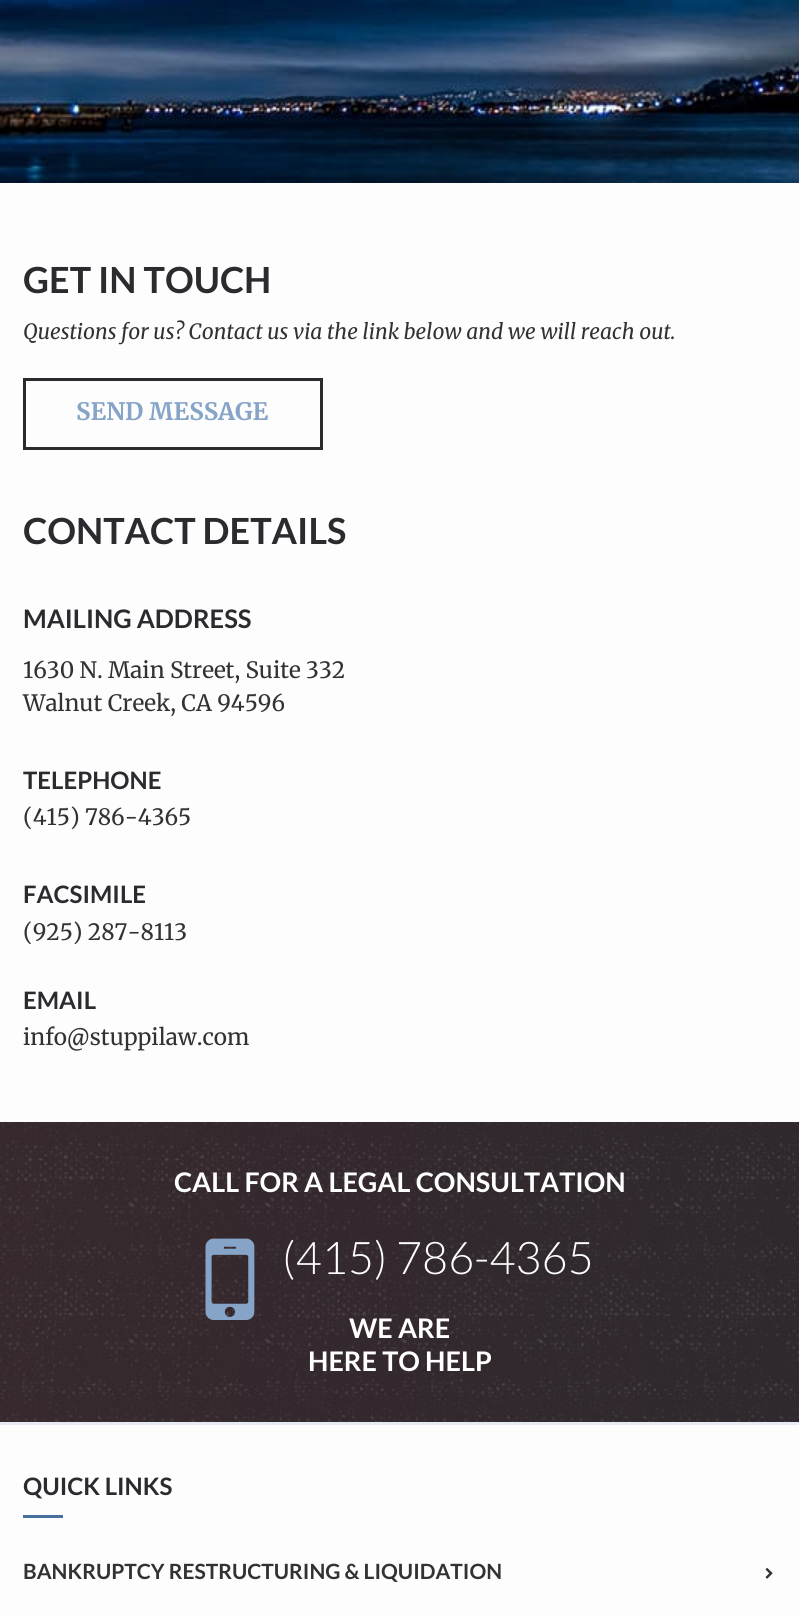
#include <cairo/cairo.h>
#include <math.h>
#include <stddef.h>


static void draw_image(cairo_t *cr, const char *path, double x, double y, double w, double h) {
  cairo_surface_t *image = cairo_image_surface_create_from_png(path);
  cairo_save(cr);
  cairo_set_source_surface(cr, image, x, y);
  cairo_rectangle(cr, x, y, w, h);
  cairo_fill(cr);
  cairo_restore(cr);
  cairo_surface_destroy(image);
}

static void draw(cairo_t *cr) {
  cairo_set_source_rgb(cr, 253 / 255.0, 253 / 255.0, 253 / 255.0);
  cairo_paint(cr);
  draw_image(cr, "images/1.png", 0, 0, 799, 183);
  cairo_rectangle(cr, 24.5, 379.5, 297, 69);
  cairo_set_source_rgb(cr, 43 / 255.0, 42 / 255.0, 47 / 255.0);
  cairo_set_line_width(cr, 3);
  cairo_stroke(cr);
  draw_image(cr, "images/2.png", 0, 1122, 799, 300);
  draw_image(cr, "images/3.png", 205, 1238, 50, 82);
  cairo_set_source_rgb(cr, 231 / 255.0, 235 / 255.0, 243 / 255.0);
  cairo_rectangle(cr, 0, 1422, 799, 3);
  cairo_fill(cr);
  cairo_set_source_rgb(cr, 72 / 255.0, 112 / 255.0, 159 / 255.0);
  cairo_rectangle(cr, 23, 1515, 40, 3);
  cairo_fill(cr);
  draw_image(cr, "images/4.png", 765, 1567, 8, 12);
  cairo_select_font_face(cr, "Lato", CAIRO_FONT_SLANT_NORMAL, CAIRO_FONT_WEIGHT_BOLD);
  cairo_set_font_size(cr, 36);
  cairo_set_source_rgb(cr, 43 / 255.0, 42 / 255.0, 47 / 255.0);
  cairo_move_to(cr, 23, 293);
  cairo_show_text(cr, "GET IN TOUCH");
  cairo_select_font_face(cr, "Merriweather", CAIRO_FONT_SLANT_ITALIC, CAIRO_FONT_WEIGHT_NORMAL);
  cairo_set_font_size(cr, 21);
  cairo_set_source_rgb(cr, 50 / 255.0, 50 / 255.0, 50 / 255.0);
  cairo_move_to(cr, 23, 339);
  cairo_show_text(cr, "Questions for us? Contact us via the link below and we will reach out.");
  cairo_select_font_face(cr, "Merriweather", CAIRO_FONT_SLANT_NORMAL, CAIRO_FONT_WEIGHT_BOLD);
  cairo_set_font_size(cr, 24);
  cairo_set_source_rgb(cr, 133 / 255.0, 164 / 255.0, 200 / 255.0);
  cairo_move_to(cr, 76, 420);
  cairo_show_text(cr, "SEND MESSAGE");
  cairo_select_font_face(cr, "Lato", CAIRO_FONT_SLANT_NORMAL, CAIRO_FONT_WEIGHT_BOLD);
  cairo_set_font_size(cr, 36);
  cairo_set_source_rgb(cr, 43 / 255.0, 42 / 255.0, 47 / 255.0);
  cairo_move_to(cr, 23, 544);
  cairo_show_text(cr, "CONTACT DETAILS");
  cairo_set_font_size(cr, 25.5);
  cairo_move_to(cr, 23, 628);
  cairo_show_text(cr, "MAILING ADDRESS");
  cairo_select_font_face(cr, "Merriweather", CAIRO_FONT_SLANT_NORMAL, CAIRO_FONT_WEIGHT_NORMAL);
  cairo_set_font_size(cr, 22.5);
  cairo_set_source_rgb(cr, 50 / 255.0, 50 / 255.0, 50 / 255.0);
  cairo_move_to(cr, 23, 678);
  cairo_show_text(cr, "1630 N. Main Street, Suite 332");
  cairo_move_to(cr, 23, 711);
  cairo_show_text(cr, "Walnut Creek, CA 94596");
  cairo_select_font_face(cr, "Lato", CAIRO_FONT_SLANT_NORMAL, CAIRO_FONT_WEIGHT_BOLD);
  cairo_set_font_size(cr, 24);
  cairo_set_source_rgb(cr, 43 / 255.0, 42 / 255.0, 47 / 255.0);
  cairo_move_to(cr, 23, 789);
  cairo_show_text(cr, "TELEPHONE");
  cairo_select_font_face(cr, "Merriweather", CAIRO_FONT_SLANT_NORMAL, CAIRO_FONT_WEIGHT_NORMAL);
  cairo_set_font_size(cr, 22.5);
  cairo_set_source_rgb(cr, 50 / 255.0, 50 / 255.0, 50 / 255.0);
  cairo_move_to(cr, 23, 825);
  cairo_show_text(cr, "(415) 786-4365");
  cairo_select_font_face(cr, "Lato", CAIRO_FONT_SLANT_NORMAL, CAIRO_FONT_WEIGHT_BOLD);
  cairo_set_font_size(cr, 24);
  cairo_set_source_rgb(cr, 43 / 255.0, 42 / 255.0, 47 / 255.0);
  cairo_move_to(cr, 23, 903);
  cairo_show_text(cr, "FACSIMILE");
  cairo_select_font_face(cr, "Merriweather", CAIRO_FONT_SLANT_NORMAL, CAIRO_FONT_WEIGHT_NORMAL);
  cairo_set_font_size(cr, 22.5);
  cairo_set_source_rgb(cr, 50 / 255.0, 50 / 255.0, 50 / 255.0);
  cairo_move_to(cr, 23, 940);
  cairo_show_text(cr, "(925) 287-8113");
  cairo_select_font_face(cr, "Lato", CAIRO_FONT_SLANT_NORMAL, CAIRO_FONT_WEIGHT_BOLD);
  cairo_set_font_size(cr, 24);
  cairo_set_source_rgb(cr, 43 / 255.0, 42 / 255.0, 47 / 255.0);
  cairo_move_to(cr, 23, 1009);
  cairo_show_text(cr, "EMAIL");
  cairo_select_font_face(cr, "Merriweather", CAIRO_FONT_SLANT_NORMAL, CAIRO_FONT_WEIGHT_NORMAL);
  cairo_set_font_size(cr, 22.5);
  cairo_set_source_rgb(cr, 50 / 255.0, 50 / 255.0, 50 / 255.0);
  cairo_move_to(cr, 23, 1045);
  cairo_show_text(cr, "info@stuppilaw.com");
  cairo_select_font_face(cr, "Lato", CAIRO_FONT_SLANT_NORMAL, CAIRO_FONT_WEIGHT_BOLD);
  cairo_set_font_size(cr, 27);
  cairo_set_source_rgb(cr, 1, 1, 1);
  cairo_move_to(cr, 174, 1192);
  cairo_show_text(cr, "CALL FOR A LEGAL CONSULTATION");
  cairo_select_font_face(cr, "Lato Light", CAIRO_FONT_SLANT_NORMAL, CAIRO_FONT_WEIGHT_NORMAL);
  cairo_set_font_size(cr, 45);
  cairo_move_to(cr, 282, 1274);
  cairo_show_text(cr, "(415) 786-4365");
  cairo_select_font_face(cr, "Lato", CAIRO_FONT_SLANT_NORMAL, CAIRO_FONT_WEIGHT_BOLD);
  cairo_set_font_size(cr, 27);
  cairo_move_to(cr, 349, 1338);
  cairo_show_text(cr, "WE ARE");
  cairo_move_to(cr, 308, 1371);
  cairo_show_text(cr, "HERE TO HELP");
  cairo_set_font_size(cr, 24);
  cairo_set_source_rgb(cr, 43 / 255.0, 42 / 255.0, 47 / 255.0);
  cairo_move_to(cr, 23, 1495);
  cairo_show_text(cr, "QUICK LINKS");
  cairo_set_font_size(cr, 21);
  cairo_set_source_rgb(cr, 50 / 255.0, 50 / 255.0, 50 / 255.0);
  cairo_move_to(cr, 23, 1579);
  cairo_show_text(cr, "BANKRUPTCY RESTRUCTURING & LIQUIDATION");
}

int main(void) {
  cairo_surface_t *surface = cairo_image_surface_create(CAIRO_FORMAT_RGB24, 799, 1616);
  cairo_t *cr = cairo_create(surface);
  cairo_font_options_t *options = cairo_font_options_create();
  cairo_font_options_set_hint_metrics(options, CAIRO_HINT_METRICS_OFF);
  cairo_font_options_set_hint_style(options, CAIRO_HINT_STYLE_NONE);
  cairo_set_font_options(cr, options);
  cairo_set_miter_limit(cr, 4);
  draw(cr);
  cairo_surface_write_to_png(surface, "out.png");
  cairo_font_options_destroy(options);
  cairo_destroy(cr);
  cairo_surface_destroy(surface);
  return 0;
}
